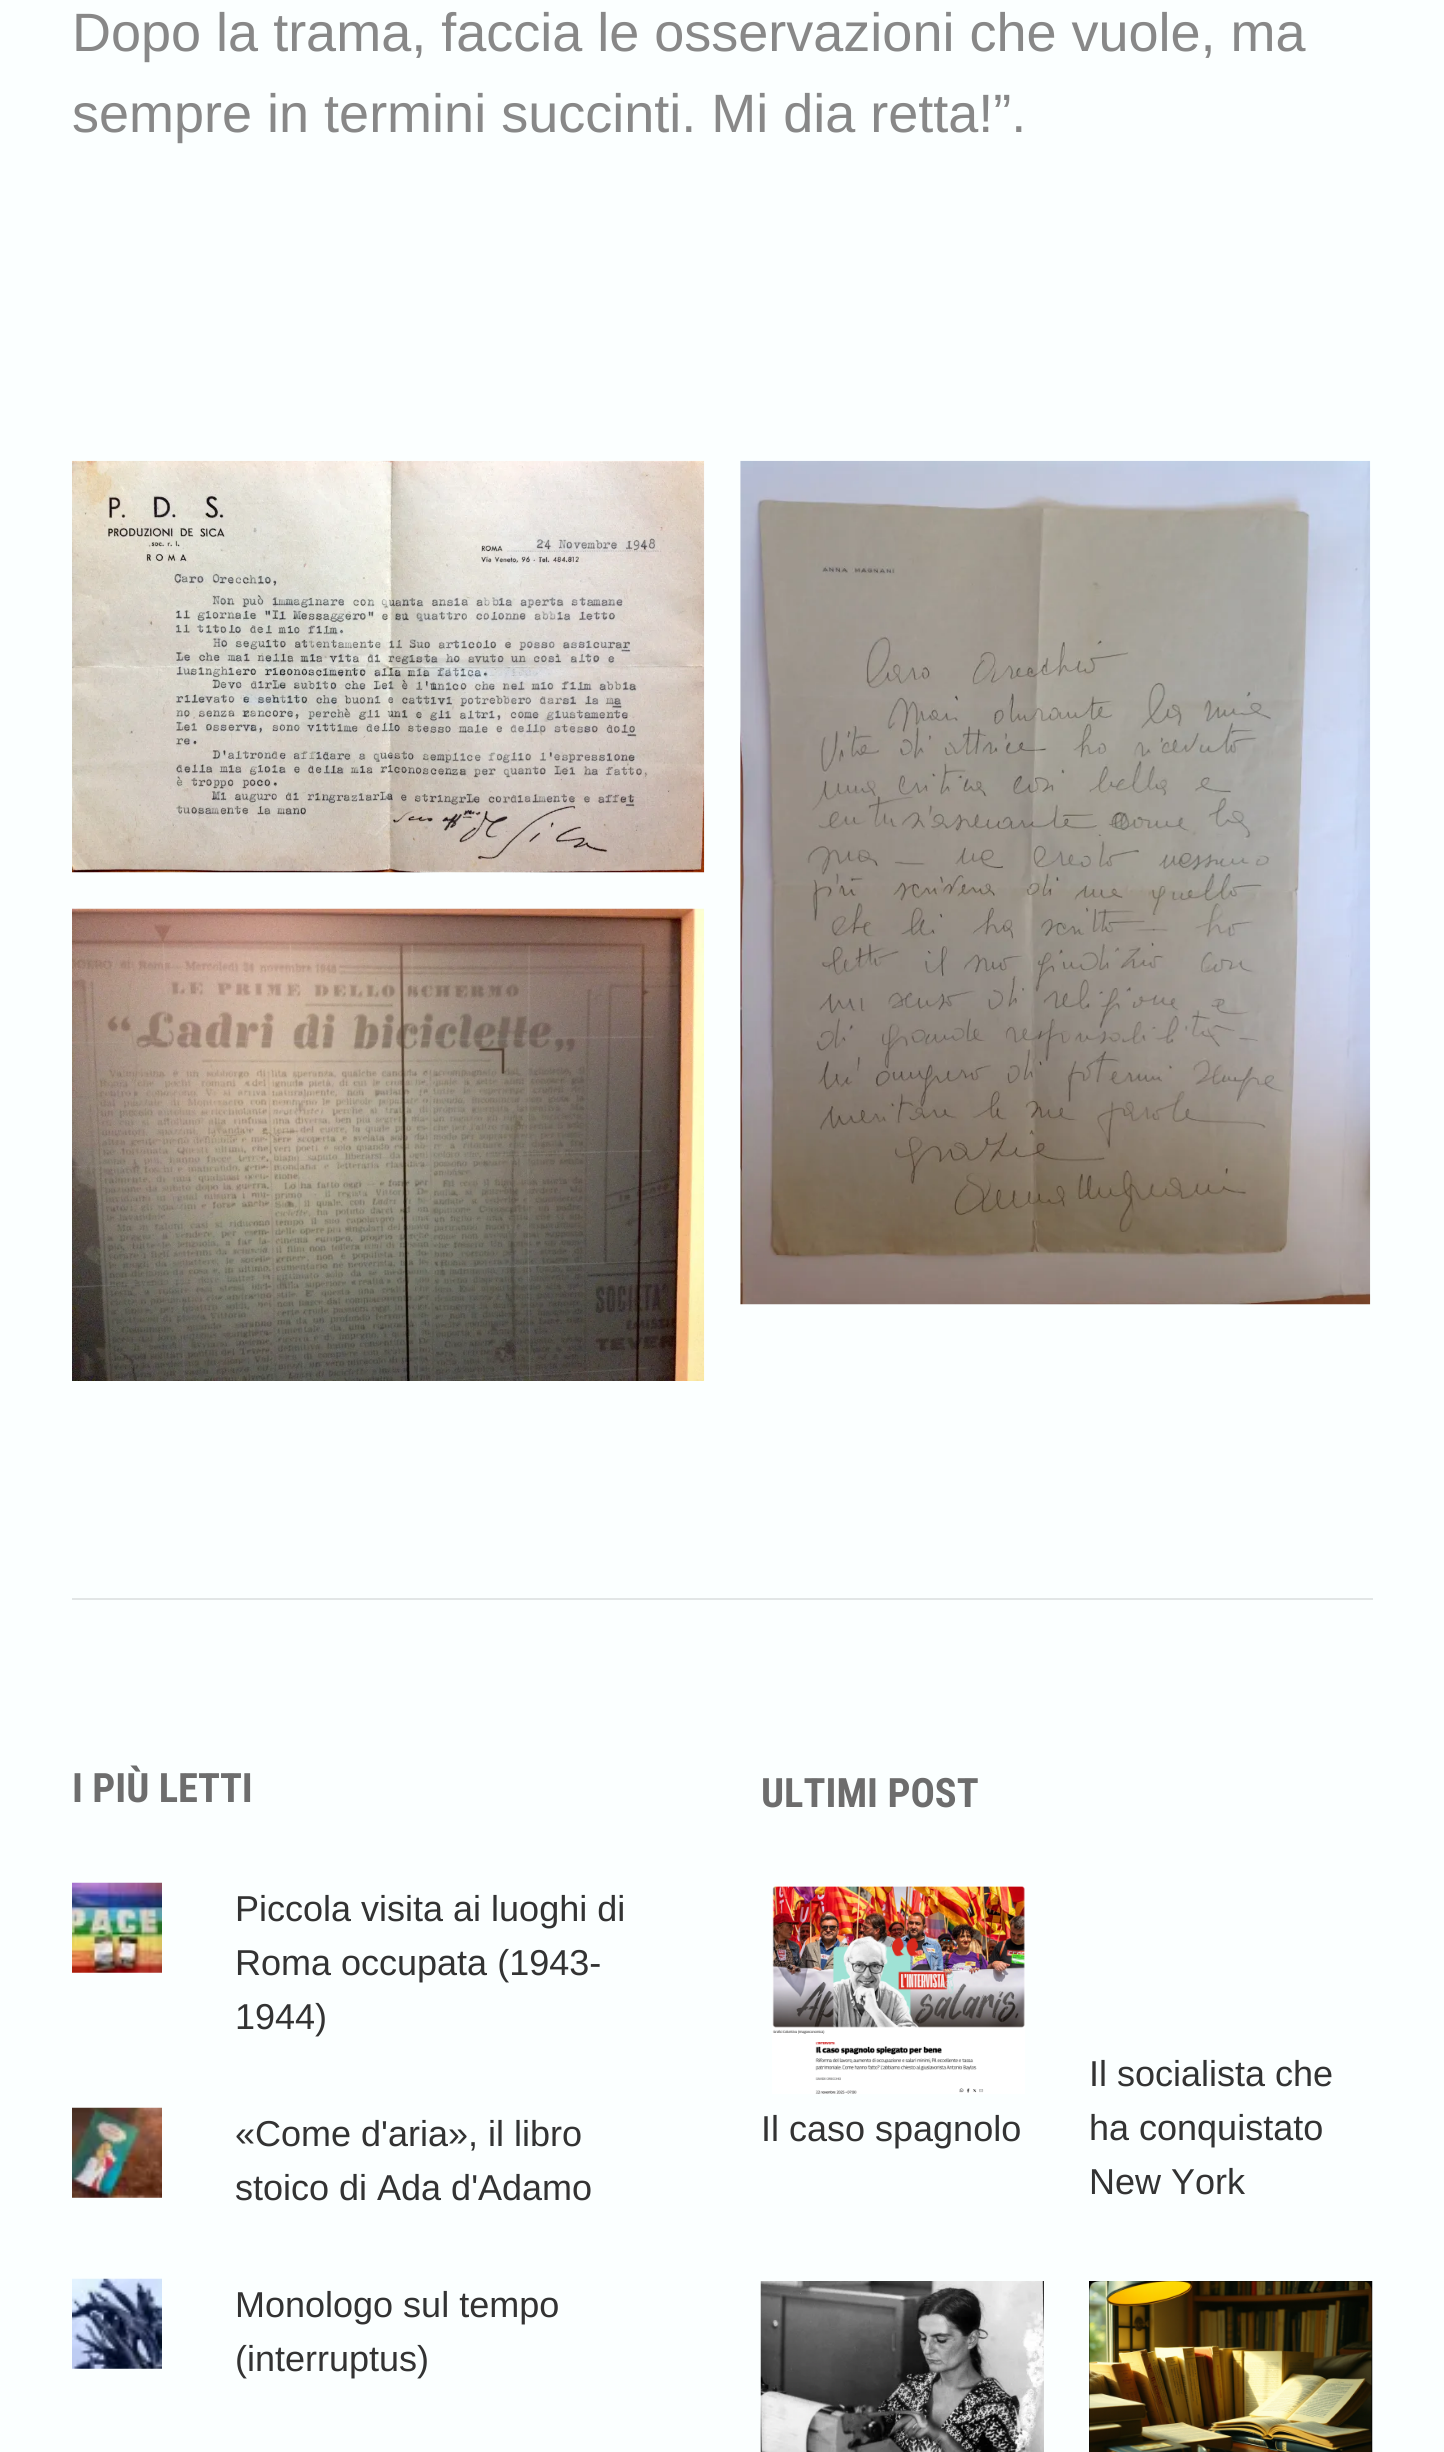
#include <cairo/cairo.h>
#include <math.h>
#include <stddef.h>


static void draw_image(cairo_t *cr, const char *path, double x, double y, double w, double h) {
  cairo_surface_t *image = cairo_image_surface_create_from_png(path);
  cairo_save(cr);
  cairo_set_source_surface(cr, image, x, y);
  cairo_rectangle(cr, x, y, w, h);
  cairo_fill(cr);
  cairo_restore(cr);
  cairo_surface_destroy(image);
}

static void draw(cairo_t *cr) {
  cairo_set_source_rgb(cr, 251 / 255.0, 1, 1);
  cairo_paint(cr);
  draw_image(cr, "images/1.png", 72, 460, 633, 413);
  draw_image(cr, "images/2.png", 740, 460, 631, 845);
  draw_image(cr, "images/3.png", 72, 908, 633, 473);
  cairo_set_source_rgb(cr, 226 / 255.0, 230 / 255.0, 230 / 255.0);
  cairo_rectangle(cr, 72, 1598, 1301, 2);
  cairo_fill(cr);
  draw_image(cr, "images/4.png", 72, 1882, 90, 91);
  draw_image(cr, "images/5.png", 72, 2107, 90, 91);
  draw_image(cr, "images/6.png", 72, 2278, 90, 91);
  draw_image(cr, "images/7.png", 772, 1886, 253, 208);
  draw_image(cr, "images/8.png", 760, 2281, 284, 171);
  draw_image(cr, "images/9.png", 1089, 2281, 284, 171);
  cairo_select_font_face(cr, "Arimo", CAIRO_FONT_SLANT_NORMAL, CAIRO_FONT_WEIGHT_NORMAL);
  cairo_set_font_size(cr, 54);
  cairo_set_source_rgb(cr, 136 / 255.0, 136 / 255.0, 136 / 255.0);
  cairo_move_to(cr, 72, 51);
  cairo_show_text(cr, "Dopo la trama, faccia le osservazioni che vuole, ma");
  cairo_move_to(cr, 72, 132);
  cairo_show_text(cr, "sempre in termini succinti. Mi dia retta!”.");
  cairo_select_font_face(cr, "Roboto Condensed", CAIRO_FONT_SLANT_NORMAL, CAIRO_FONT_WEIGHT_BOLD);
  cairo_set_font_size(cr, 40.5);
  cairo_set_source_rgb(cr, 109 / 255.0, 109 / 255.0, 109 / 255.0);
  cairo_move_to(cr, 72, 1802);
  cairo_show_text(cr, "I PIÙ LETTI");
  cairo_select_font_face(cr, "Arimo", CAIRO_FONT_SLANT_NORMAL, CAIRO_FONT_WEIGHT_NORMAL);
  cairo_set_font_size(cr, 36);
  cairo_set_source_rgb(cr, 51 / 255.0, 51 / 255.0, 51 / 255.0);
  cairo_move_to(cr, 235, 1921);
  cairo_show_text(cr, "Piccola visita ai luoghi di");
  cairo_move_to(cr, 235, 1975);
  cairo_show_text(cr, "Roma occupata (1943-");
  cairo_move_to(cr, 235, 2029);
  cairo_show_text(cr, "1944)");
  cairo_move_to(cr, 235, 2146);
  cairo_show_text(cr, "«Come d'aria», il libro");
  cairo_move_to(cr, 235, 2200);
  cairo_show_text(cr, "stoico di Ada d'Adamo");
  cairo_move_to(cr, 235, 2317);
  cairo_show_text(cr, "Monologo sul tempo");
  cairo_move_to(cr, 235, 2371);
  cairo_show_text(cr, "(interruptus)");
  cairo_select_font_face(cr, "Roboto Condensed", CAIRO_FONT_SLANT_NORMAL, CAIRO_FONT_WEIGHT_BOLD);
  cairo_set_font_size(cr, 40.5);
  cairo_set_source_rgb(cr, 109 / 255.0, 109 / 255.0, 109 / 255.0);
  cairo_move_to(cr, 761, 1807);
  cairo_show_text(cr, "ULTIMI POST");
  cairo_select_font_face(cr, "Arimo", CAIRO_FONT_SLANT_NORMAL, CAIRO_FONT_WEIGHT_NORMAL);
  cairo_set_font_size(cr, 36);
  cairo_set_source_rgb(cr, 51 / 255.0, 51 / 255.0, 51 / 255.0);
  cairo_move_to(cr, 761, 2141);
  cairo_show_text(cr, "Il caso spagnolo");
  cairo_move_to(cr, 1089, 2086);
  cairo_show_text(cr, "Il socialista che");
  cairo_move_to(cr, 1089, 2140);
  cairo_show_text(cr, "ha conquistato");
  cairo_move_to(cr, 1089, 2194);
  cairo_show_text(cr, "New York");
}

int main(void) {
  cairo_surface_t *surface = cairo_image_surface_create(CAIRO_FORMAT_RGB24, 1444, 2452);
  cairo_t *cr = cairo_create(surface);
  cairo_font_options_t *options = cairo_font_options_create();
  cairo_font_options_set_hint_metrics(options, CAIRO_HINT_METRICS_OFF);
  cairo_font_options_set_hint_style(options, CAIRO_HINT_STYLE_NONE);
  cairo_set_font_options(cr, options);
  cairo_set_miter_limit(cr, 4);
  draw(cr);
  cairo_surface_write_to_png(surface, "out.png");
  cairo_font_options_destroy(options);
  cairo_destroy(cr);
  cairo_surface_destroy(surface);
  return 0;
}
